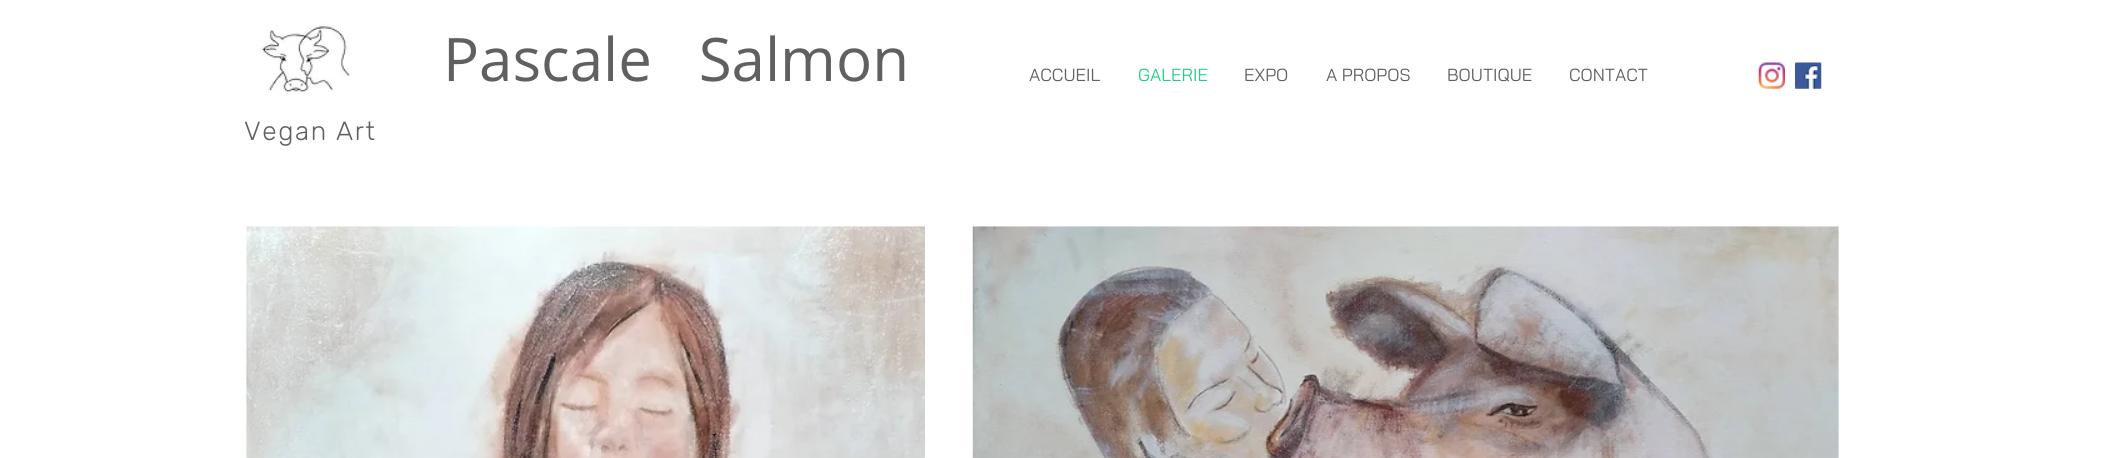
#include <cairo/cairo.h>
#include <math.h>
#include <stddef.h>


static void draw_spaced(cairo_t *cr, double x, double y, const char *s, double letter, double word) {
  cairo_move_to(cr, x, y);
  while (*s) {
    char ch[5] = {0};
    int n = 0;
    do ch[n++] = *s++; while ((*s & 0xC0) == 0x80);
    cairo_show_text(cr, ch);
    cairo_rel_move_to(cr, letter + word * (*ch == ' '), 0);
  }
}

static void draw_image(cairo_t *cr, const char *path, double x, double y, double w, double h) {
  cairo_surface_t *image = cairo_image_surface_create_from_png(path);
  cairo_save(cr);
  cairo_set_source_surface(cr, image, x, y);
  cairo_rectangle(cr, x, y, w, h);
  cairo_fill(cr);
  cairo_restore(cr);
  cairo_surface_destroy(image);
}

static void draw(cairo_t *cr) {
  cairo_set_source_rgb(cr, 1, 1, 1);
  cairo_paint(cr);
  draw_image(cr, "images/1.png", 259, 23, 92, 69);
  draw_image(cr, "images/2.png", 1758, 62, 27, 27);
  draw_image(cr, "images/3.png", 1795, 62, 27, 27);
  draw_image(cr, "images/4.png", 246, 226, 679, 232);
  draw_image(cr, "images/5.png", 972, 226, 867, 232);
  cairo_select_font_face(cr, "Open Sans", CAIRO_FONT_SLANT_NORMAL, CAIRO_FONT_WEIGHT_NORMAL);
  cairo_set_font_size(cr, 60);
  cairo_set_source_rgb(cr, 96 / 255.0, 96 / 255.0, 96 / 255.0);
  cairo_move_to(cr, 443, 81);
  cairo_show_text(cr, "Pascale   Salmon");
  cairo_select_font_face(cr, "Bai Jamjuree", CAIRO_FONT_SLANT_NORMAL, CAIRO_FONT_WEIGHT_NORMAL);
  cairo_set_font_size(cr, 17.5);
  cairo_move_to(cr, 1029, 81);
  cairo_show_text(cr, "ACCUEIL");
  cairo_set_source_rgb(cr, 32 / 255.0, 206 / 255.0, 136 / 255.0);
  cairo_move_to(cr, 1138, 81);
  cairo_show_text(cr, "GALERIE");
  cairo_set_source_rgb(cr, 96 / 255.0, 96 / 255.0, 96 / 255.0);
  cairo_move_to(cr, 1244, 81);
  cairo_show_text(cr, "EXPO");
  cairo_move_to(cr, 1326, 81);
  cairo_show_text(cr, "A PROPOS");
  cairo_move_to(cr, 1447, 81);
  cairo_show_text(cr, "BOUTIQUE");
  cairo_move_to(cr, 1569, 81);
  cairo_show_text(cr, "CONTACT");
  cairo_select_font_face(cr, "Rubik Light", CAIRO_FONT_SLANT_NORMAL, CAIRO_FONT_WEIGHT_NORMAL);
  cairo_set_font_size(cr, 26.25);
  draw_spaced(cr, 244, 140, "V e g a n   A r t", -2.6, 0);
}

int main(void) {
  cairo_surface_t *surface = cairo_image_surface_create(CAIRO_FORMAT_RGB24, 2114, 458);
  cairo_t *cr = cairo_create(surface);
  cairo_font_options_t *options = cairo_font_options_create();
  cairo_font_options_set_hint_metrics(options, CAIRO_HINT_METRICS_OFF);
  cairo_font_options_set_hint_style(options, CAIRO_HINT_STYLE_NONE);
  cairo_set_font_options(cr, options);
  cairo_set_miter_limit(cr, 4);
  draw(cr);
  cairo_surface_write_to_png(surface, "out.png");
  cairo_font_options_destroy(options);
  cairo_destroy(cr);
  cairo_surface_destroy(surface);
  return 0;
}
